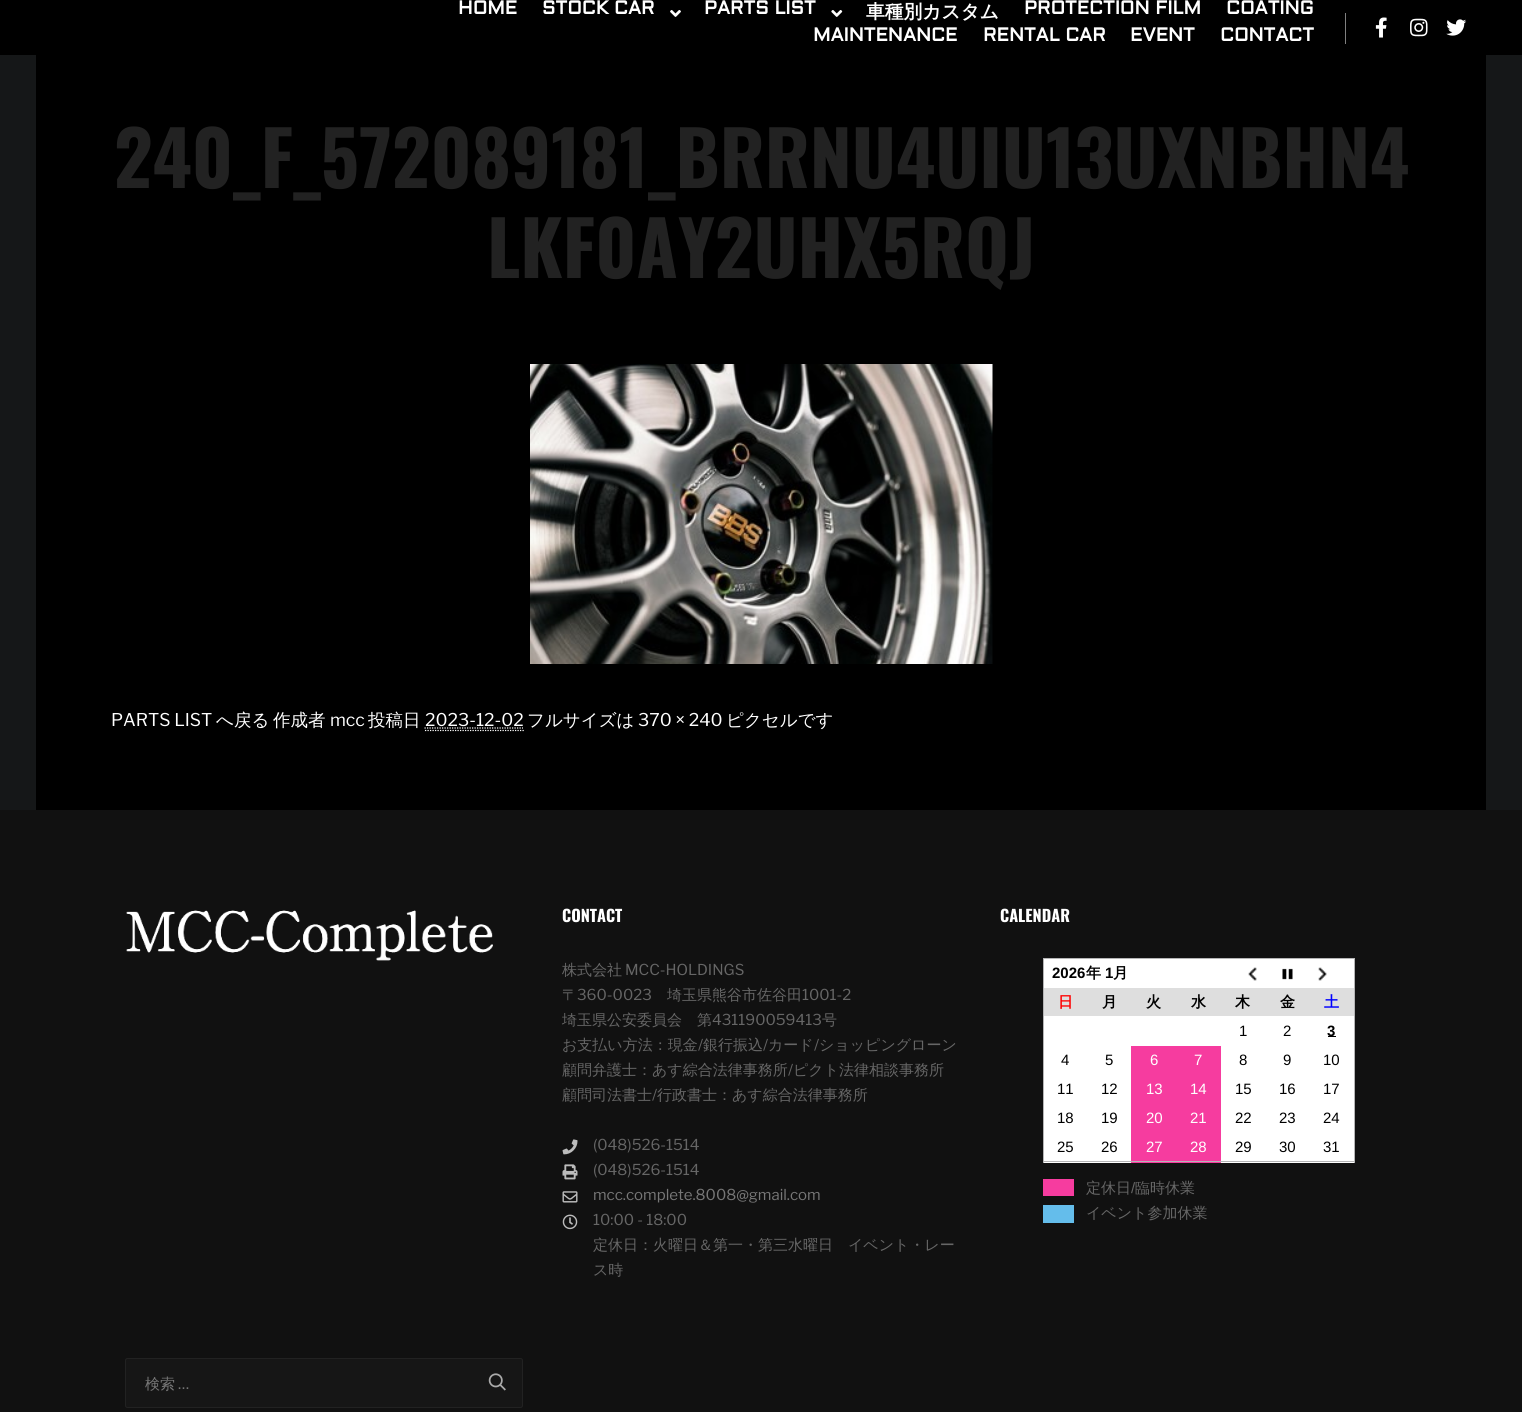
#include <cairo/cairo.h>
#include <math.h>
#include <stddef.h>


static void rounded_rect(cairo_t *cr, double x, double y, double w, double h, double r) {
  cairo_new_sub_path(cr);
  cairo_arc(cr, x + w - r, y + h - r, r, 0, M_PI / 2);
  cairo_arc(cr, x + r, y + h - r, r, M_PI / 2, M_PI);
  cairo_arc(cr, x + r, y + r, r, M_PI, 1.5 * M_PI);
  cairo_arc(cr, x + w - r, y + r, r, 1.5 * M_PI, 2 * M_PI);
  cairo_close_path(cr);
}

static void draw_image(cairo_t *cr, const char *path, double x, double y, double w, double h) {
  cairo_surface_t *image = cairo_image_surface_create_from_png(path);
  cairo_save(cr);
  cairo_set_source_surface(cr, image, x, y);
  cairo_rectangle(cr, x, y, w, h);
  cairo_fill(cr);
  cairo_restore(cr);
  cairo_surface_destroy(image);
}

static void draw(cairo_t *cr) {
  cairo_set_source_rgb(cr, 21 / 255.0, 23 / 255.0, 24 / 255.0);
  cairo_paint(cr);
  cairo_set_source_rgb(cr, 0, 0, 0);
  cairo_rectangle(cr, 0, 0, 1522, 55);
  cairo_fill(cr);
  draw_image(cr, "images/1.png", 670, 10, 11, 7);
  draw_image(cr, "images/2.png", 831, 10, 12, 7);
  cairo_set_source_rgb(cr, 128 / 255.0, 128 / 255.0, 128 / 255.0);
  cairo_rectangle(cr, 1345, 13, 1, 31);
  cairo_fill(cr);
  draw_image(cr, "images/3.png", 1375, 17, 12, 21);
  draw_image(cr, "images/4.png", 1410, 18, 18, 19);
  draw_image(cr, "images/5.png", 1446, 19, 21, 17);
  cairo_set_source_rgb(cr, 0, 0, 0);
  cairo_rectangle(cr, 36, 55, 1450, 755);
  cairo_fill(cr);
  draw_image(cr, "images/6.png", 530, 364, 463, 300);
  cairo_new_path(cr);
  cairo_move_to(cr, 425, 730.5);
  cairo_line_to(cr, 524, 730.5);
  cairo_set_source_rgb(cr, 1, 1, 1);
  cairo_set_line_width(cr, 1.2);
  cairo_set_dash(cr, (double[]){1.25, 1.25}, 2, 0);
  cairo_stroke(cr);
  cairo_new_path(cr);
  cairo_move_to(cr, 424.5, 728);
  cairo_line_to(cr, 523, 728);
  cairo_stroke(cr);
  cairo_set_source_rgb(cr, 17 / 255.0, 17 / 255.0, 17 / 255.0);
  cairo_rectangle(cr, 0, 810, 1522, 602);
  cairo_fill(cr);
  draw_image(cr, "images/7.png", 126, 910, 367, 51);
  draw_image(cr, "images/8.png", 562, 1139, 16, 16);
  draw_image(cr, "images/9.png", 562, 1164, 16, 16);
  draw_image(cr, "images/10.png", 562, 1191, 16, 12);
  draw_image(cr, "images/11.png", 562, 1214, 16, 16);
  cairo_set_source_rgb(cr, 1, 1, 1);
  cairo_rectangle(cr, 1044, 959, 310, 204);
  cairo_fill(cr);
  cairo_set_source_rgb(cr, 181 / 255.0, 181 / 255.0, 182 / 255.0);
  cairo_rectangle(cr, 1043, 958, 312, 1);
  cairo_fill(cr);
  cairo_rectangle(cr, 1354, 958, 1, 205);
  cairo_fill(cr);
  cairo_set_source_rgb(cr, 246 / 255.0, 60 / 255.0, 159 / 255.0);
  cairo_rectangle(cr, 1131, 1133, 90, 30);
  cairo_fill(cr);
  cairo_set_source_rgb(cr, 181 / 255.0, 181 / 255.0, 182 / 255.0);
  cairo_rectangle(cr, 1043, 1161, 312, 1);
  cairo_fill(cr);
  cairo_rectangle(cr, 1043, 958, 1, 205);
  cairo_fill(cr);
  draw_image(cr, "images/12.png", 1248, 967, 9, 14);
  draw_image(cr, "images/13.png", 1282, 968, 11, 12);
  draw_image(cr, "images/14.png", 1318, 967, 9, 14);
  cairo_set_source_rgb(cr, 222 / 255.0, 222 / 255.0, 222 / 255.0);
  cairo_rectangle(cr, 1044, 988, 310, 28);
  cairo_fill(cr);
  cairo_set_source_rgb(cr, 0, 0, 0);
  cairo_rectangle(cr, 1328, 1036, 8, 1);
  cairo_fill(cr);
  cairo_set_source_rgb(cr, 246 / 255.0, 60 / 255.0, 159 / 255.0);
  cairo_rectangle(cr, 1131, 1046, 90, 29);
  cairo_fill(cr);
  cairo_rectangle(cr, 1131, 1075, 90, 29);
  cairo_fill(cr);
  cairo_rectangle(cr, 1131, 1104, 90, 29);
  cairo_fill(cr);
  cairo_rectangle(cr, 1043, 1179, 31, 17);
  cairo_fill(cr);
  cairo_set_source_rgb(cr, 100 / 255.0, 189 / 255.0, 235 / 255.0);
  cairo_rectangle(cr, 1043, 1205, 31, 18);
  cairo_fill(cr);
  cairo_set_source_rgb(cr, 22 / 255.0, 22 / 255.0, 22 / 255.0);
  rounded_rect(cr, 125.5, 1358.5, 397, 49, 2);
  cairo_fill_preserve(cr);
  cairo_set_source_rgb(cr, 34 / 255.0, 34 / 255.0, 34 / 255.0);
  cairo_set_line_width(cr, 1);
  cairo_set_dash(cr, NULL, 0, 0);
  cairo_stroke(cr);
  draw_image(cr, "images/15.png", 488, 1373, 18, 18);
  cairo_select_font_face(cr, "Aldrich", CAIRO_FONT_SLANT_NORMAL, CAIRO_FONT_WEIGHT_BOLD);
  cairo_set_font_size(cr, 18.75);
  cairo_set_source_rgb(cr, 1, 1, 1);
  cairo_move_to(cr, 458, 14);
  cairo_show_text(cr, "HOME");
  cairo_move_to(cr, 542, 14);
  cairo_show_text(cr, "STOCK CAR");
  cairo_move_to(cr, 704, 14);
  cairo_show_text(cr, "PARTS LIST");
  cairo_select_font_face(cr, "WenQuanYi Zen Hei", CAIRO_FONT_SLANT_NORMAL, CAIRO_FONT_WEIGHT_BOLD);
  cairo_move_to(cr, 866, 18);
  cairo_show_text(cr, "車種別カスタム");
  cairo_select_font_face(cr, "Aldrich", CAIRO_FONT_SLANT_NORMAL, CAIRO_FONT_WEIGHT_BOLD);
  cairo_move_to(cr, 1024, 14);
  cairo_show_text(cr, "PROTECTION FILM");
  cairo_move_to(cr, 1226, 14);
  cairo_show_text(cr, "COATING");
  cairo_move_to(cr, 813, 41);
  cairo_show_text(cr, "MAINTENANCE");
  cairo_move_to(cr, 983, 41);
  cairo_show_text(cr, "RENTAL CAR");
  cairo_move_to(cr, 1130, 41);
  cairo_show_text(cr, "EVENT");
  cairo_move_to(cr, 1220, 41);
  cairo_show_text(cr, "CONTACT");
  cairo_select_font_face(cr, "Oswald", CAIRO_FONT_SLANT_NORMAL, CAIRO_FONT_WEIGHT_BOLD);
  cairo_set_font_size(cr, 75);
  cairo_set_source_rgb(cr, 34 / 255.0, 34 / 255.0, 34 / 255.0);
  cairo_move_to(cr, 114, 188);
  cairo_show_text(cr, "240_F_572089181_BRRNU4UIU13UXNBHN4");
  cairo_move_to(cr, 487, 278);
  cairo_show_text(cr, "LKF0AY2UHX5RQJ");
  cairo_select_font_face(cr, "Libre Franklin", CAIRO_FONT_SLANT_NORMAL, CAIRO_FONT_WEIGHT_NORMAL);
  cairo_set_font_size(cr, 17.5);
  cairo_set_source_rgb(cr, 1, 1, 1);
  cairo_move_to(cr, 111, 726);
  cairo_show_text(cr, "PARTS LIST");
  cairo_select_font_face(cr, "WenQuanYi Zen Hei Medium", CAIRO_FONT_SLANT_NORMAL, CAIRO_FONT_WEIGHT_NORMAL);
  cairo_move_to(cr, 216, 726);
  cairo_show_text(cr, "へ戻る");
  cairo_move_to(cr, 273, 726);
  cairo_show_text(cr, "作成者");
  cairo_select_font_face(cr, "Libre Franklin", CAIRO_FONT_SLANT_NORMAL, CAIRO_FONT_WEIGHT_NORMAL);
  cairo_move_to(cr, 330, 726);
  cairo_show_text(cr, "mcc");
  cairo_select_font_face(cr, "WenQuanYi Zen Hei Medium", CAIRO_FONT_SLANT_NORMAL, CAIRO_FONT_WEIGHT_NORMAL);
  cairo_move_to(cr, 368, 726);
  cairo_show_text(cr, "投稿日");
  cairo_select_font_face(cr, "Libre Franklin", CAIRO_FONT_SLANT_NORMAL, CAIRO_FONT_WEIGHT_NORMAL);
  cairo_move_to(cr, 425, 726);
  cairo_show_text(cr, "2023-12-02");
  cairo_select_font_face(cr, "WenQuanYi Zen Hei Medium", CAIRO_FONT_SLANT_NORMAL, CAIRO_FONT_WEIGHT_NORMAL);
  cairo_move_to(cr, 527, 726);
  cairo_show_text(cr, "フルサイズは");
  cairo_select_font_face(cr, "Libre Franklin", CAIRO_FONT_SLANT_NORMAL, CAIRO_FONT_WEIGHT_NORMAL);
  cairo_move_to(cr, 638, 726);
  cairo_show_text(cr, "370 × 240");
  cairo_select_font_face(cr, "WenQuanYi Zen Hei Medium", CAIRO_FONT_SLANT_NORMAL, CAIRO_FONT_WEIGHT_NORMAL);
  cairo_move_to(cr, 726, 726);
  cairo_show_text(cr, "ピクセルです");
  cairo_select_font_face(cr, "Oswald", CAIRO_FONT_SLANT_NORMAL, CAIRO_FONT_WEIGHT_BOLD);
  cairo_set_font_size(cr, 16.25);
  cairo_move_to(cr, 562, 922);
  cairo_show_text(cr, "CONTACT");
  cairo_select_font_face(cr, "WenQuanYi Zen Hei Medium", CAIRO_FONT_SLANT_NORMAL, CAIRO_FONT_WEIGHT_NORMAL);
  cairo_set_font_size(cr, 15);
  cairo_set_source_rgb(cr, 102 / 255.0, 102 / 255.0, 102 / 255.0);
  cairo_move_to(cr, 562, 975);
  cairo_show_text(cr, "株式会社");
  cairo_select_font_face(cr, "Libre Franklin", CAIRO_FONT_SLANT_NORMAL, CAIRO_FONT_WEIGHT_NORMAL);
  cairo_move_to(cr, 625, 975);
  cairo_show_text(cr, "MCC-HOLDINGS");
  cairo_select_font_face(cr, "WenQuanYi Zen Hei Medium", CAIRO_FONT_SLANT_NORMAL, CAIRO_FONT_WEIGHT_NORMAL);
  cairo_move_to(cr, 562, 1000);
  cairo_show_text(cr, "〒");
  cairo_select_font_face(cr, "Libre Franklin", CAIRO_FONT_SLANT_NORMAL, CAIRO_FONT_WEIGHT_NORMAL);
  cairo_move_to(cr, 577, 1000);
  cairo_show_text(cr, "360-0023");
  cairo_select_font_face(cr, "WenQuanYi Zen Hei Medium", CAIRO_FONT_SLANT_NORMAL, CAIRO_FONT_WEIGHT_NORMAL);
  cairo_move_to(cr, 667, 1000);
  cairo_show_text(cr, "埼玉県熊谷市佐谷田");
  cairo_select_font_face(cr, "Libre Franklin", CAIRO_FONT_SLANT_NORMAL, CAIRO_FONT_WEIGHT_NORMAL);
  cairo_move_to(cr, 802, 1000);
  cairo_show_text(cr, "1001-2");
  cairo_select_font_face(cr, "WenQuanYi Zen Hei Medium", CAIRO_FONT_SLANT_NORMAL, CAIRO_FONT_WEIGHT_NORMAL);
  cairo_move_to(cr, 562, 1025);
  cairo_show_text(cr, "埼玉県公安委員会　第");
  cairo_select_font_face(cr, "Libre Franklin", CAIRO_FONT_SLANT_NORMAL, CAIRO_FONT_WEIGHT_NORMAL);
  cairo_move_to(cr, 712, 1025);
  cairo_show_text(cr, "431190059413");
  cairo_select_font_face(cr, "WenQuanYi Zen Hei Medium", CAIRO_FONT_SLANT_NORMAL, CAIRO_FONT_WEIGHT_NORMAL);
  cairo_move_to(cr, 822, 1025);
  cairo_show_text(cr, "号");
  cairo_move_to(cr, 562, 1050);
  cairo_show_text(cr, "お支払い方法：現金");
  cairo_select_font_face(cr, "Libre Franklin", CAIRO_FONT_SLANT_NORMAL, CAIRO_FONT_WEIGHT_NORMAL);
  cairo_move_to(cr, 698, 1050);
  cairo_show_text(cr, "/");
  cairo_select_font_face(cr, "WenQuanYi Zen Hei Medium", CAIRO_FONT_SLANT_NORMAL, CAIRO_FONT_WEIGHT_NORMAL);
  cairo_move_to(cr, 703, 1050);
  cairo_show_text(cr, "銀行振込");
  cairo_select_font_face(cr, "Libre Franklin", CAIRO_FONT_SLANT_NORMAL, CAIRO_FONT_WEIGHT_NORMAL);
  cairo_move_to(cr, 763, 1050);
  cairo_show_text(cr, "/");
  cairo_select_font_face(cr, "WenQuanYi Zen Hei Medium", CAIRO_FONT_SLANT_NORMAL, CAIRO_FONT_WEIGHT_NORMAL);
  cairo_move_to(cr, 768, 1050);
  cairo_show_text(cr, "カード");
  cairo_select_font_face(cr, "Libre Franklin", CAIRO_FONT_SLANT_NORMAL, CAIRO_FONT_WEIGHT_NORMAL);
  cairo_move_to(cr, 814, 1050);
  cairo_show_text(cr, "/");
  cairo_select_font_face(cr, "WenQuanYi Zen Hei Medium", CAIRO_FONT_SLANT_NORMAL, CAIRO_FONT_WEIGHT_NORMAL);
  cairo_move_to(cr, 819, 1050);
  cairo_show_text(cr, "ショッピングローン");
  cairo_move_to(cr, 562, 1075);
  cairo_show_text(cr, "顧問弁護士：あす綜合法律事務所");
  cairo_select_font_face(cr, "Libre Franklin", CAIRO_FONT_SLANT_NORMAL, CAIRO_FONT_WEIGHT_NORMAL);
  cairo_move_to(cr, 788, 1075);
  cairo_show_text(cr, "/");
  cairo_select_font_face(cr, "WenQuanYi Zen Hei Medium", CAIRO_FONT_SLANT_NORMAL, CAIRO_FONT_WEIGHT_NORMAL);
  cairo_move_to(cr, 793, 1075);
  cairo_show_text(cr, "ピクト法律相談事務所");
  cairo_move_to(cr, 562, 1100);
  cairo_show_text(cr, "顧問司法書士");
  cairo_select_font_face(cr, "Libre Franklin", CAIRO_FONT_SLANT_NORMAL, CAIRO_FONT_WEIGHT_NORMAL);
  cairo_move_to(cr, 652, 1100);
  cairo_show_text(cr, "/");
  cairo_select_font_face(cr, "WenQuanYi Zen Hei Medium", CAIRO_FONT_SLANT_NORMAL, CAIRO_FONT_WEIGHT_NORMAL);
  cairo_move_to(cr, 657, 1100);
  cairo_show_text(cr, "行政書士：あす綜合法律事務所");
  cairo_select_font_face(cr, "Libre Franklin", CAIRO_FONT_SLANT_NORMAL, CAIRO_FONT_WEIGHT_NORMAL);
  cairo_move_to(cr, 593, 1150);
  cairo_show_text(cr, "(048)526-1514");
  cairo_move_to(cr, 593, 1175);
  cairo_show_text(cr, "(048)526-1514");
  cairo_set_source_rgb(cr, 119 / 255.0, 119 / 255.0, 119 / 255.0);
  cairo_move_to(cr, 593, 1200);
  cairo_show_text(cr, "mcc.complete.8008@gmail.com");
  cairo_set_source_rgb(cr, 102 / 255.0, 102 / 255.0, 102 / 255.0);
  cairo_move_to(cr, 593, 1225);
  cairo_show_text(cr, "10:00 - 18:00");
  cairo_select_font_face(cr, "WenQuanYi Zen Hei Medium", CAIRO_FONT_SLANT_NORMAL, CAIRO_FONT_WEIGHT_NORMAL);
  cairo_move_to(cr, 593, 1250);
  cairo_show_text(cr, "定休日：火曜日＆第一・第三水曜日　イベント・レー");
  cairo_move_to(cr, 593, 1275);
  cairo_show_text(cr, "ス時");
  cairo_select_font_face(cr, "Oswald", CAIRO_FONT_SLANT_NORMAL, CAIRO_FONT_WEIGHT_BOLD);
  cairo_set_font_size(cr, 16.25);
  cairo_set_source_rgb(cr, 1, 1, 1);
  cairo_move_to(cr, 1000, 922);
  cairo_show_text(cr, "CALENDAR");
  cairo_select_font_face(cr, "Liberation Sans", CAIRO_FONT_SLANT_NORMAL, CAIRO_FONT_WEIGHT_BOLD);
  cairo_set_font_size(cr, 15);
  cairo_set_source_rgb(cr, 0, 0, 0);
  cairo_move_to(cr, 1052, 978);
  cairo_show_text(cr, "2026");
  cairo_select_font_face(cr, "WenQuanYi Zen Hei", CAIRO_FONT_SLANT_NORMAL, CAIRO_FONT_WEIGHT_BOLD);
  cairo_move_to(cr, 1086, 978);
  cairo_show_text(cr, "年");
  cairo_select_font_face(cr, "Liberation Sans", CAIRO_FONT_SLANT_NORMAL, CAIRO_FONT_WEIGHT_BOLD);
  cairo_move_to(cr, 1105, 978);
  cairo_show_text(cr, "1");
  cairo_select_font_face(cr, "WenQuanYi Zen Hei", CAIRO_FONT_SLANT_NORMAL, CAIRO_FONT_WEIGHT_BOLD);
  cairo_move_to(cr, 1113, 978);
  cairo_show_text(cr, "月");
  cairo_set_source_rgb(cr, 1, 0, 0);
  cairo_move_to(cr, 1058, 1007);
  cairo_show_text(cr, "日");
  cairo_set_source_rgb(cr, 0, 0, 0);
  cairo_move_to(cr, 1102, 1007);
  cairo_show_text(cr, "月");
  cairo_move_to(cr, 1146, 1007);
  cairo_show_text(cr, "火");
  cairo_move_to(cr, 1191, 1007);
  cairo_show_text(cr, "水");
  cairo_move_to(cr, 1235, 1007);
  cairo_show_text(cr, "木");
  cairo_move_to(cr, 1280, 1007);
  cairo_show_text(cr, "金");
  cairo_set_source_rgb(cr, 0, 0, 1);
  cairo_move_to(cr, 1324, 1007);
  cairo_show_text(cr, "土");
  cairo_select_font_face(cr, "Liberation Sans", CAIRO_FONT_SLANT_NORMAL, CAIRO_FONT_WEIGHT_NORMAL);
  cairo_set_source_rgb(cr, 0, 0, 0);
  cairo_move_to(cr, 1239, 1036);
  cairo_show_text(cr, "1");
  cairo_move_to(cr, 1283, 1036);
  cairo_show_text(cr, "2");
  cairo_select_font_face(cr, "Liberation Sans", CAIRO_FONT_SLANT_NORMAL, CAIRO_FONT_WEIGHT_BOLD);
  cairo_move_to(cr, 1327, 1036);
  cairo_show_text(cr, "3");
  cairo_select_font_face(cr, "Liberation Sans", CAIRO_FONT_SLANT_NORMAL, CAIRO_FONT_WEIGHT_NORMAL);
  cairo_move_to(cr, 1061, 1065);
  cairo_show_text(cr, "4");
  cairo_move_to(cr, 1105, 1065);
  cairo_show_text(cr, "5");
  cairo_set_source_rgb(cr, 1, 1, 1);
  cairo_move_to(cr, 1150, 1065);
  cairo_show_text(cr, "6");
  cairo_move_to(cr, 1194, 1065);
  cairo_show_text(cr, "7");
  cairo_set_source_rgb(cr, 0, 0, 0);
  cairo_move_to(cr, 1239, 1065);
  cairo_show_text(cr, "8");
  cairo_move_to(cr, 1283, 1065);
  cairo_show_text(cr, "9");
  cairo_move_to(cr, 1323, 1065);
  cairo_show_text(cr, "10");
  cairo_move_to(cr, 1057, 1094);
  cairo_show_text(cr, "11");
  cairo_move_to(cr, 1101, 1094);
  cairo_show_text(cr, "12");
  cairo_set_source_rgb(cr, 1, 1, 1);
  cairo_move_to(cr, 1146, 1094);
  cairo_show_text(cr, "13");
  cairo_move_to(cr, 1190, 1094);
  cairo_show_text(cr, "14");
  cairo_set_source_rgb(cr, 0, 0, 0);
  cairo_move_to(cr, 1235, 1094);
  cairo_show_text(cr, "15");
  cairo_move_to(cr, 1279, 1094);
  cairo_show_text(cr, "16");
  cairo_move_to(cr, 1323, 1094);
  cairo_show_text(cr, "17");
  cairo_move_to(cr, 1057, 1123);
  cairo_show_text(cr, "18");
  cairo_move_to(cr, 1101, 1123);
  cairo_show_text(cr, "19");
  cairo_set_source_rgb(cr, 1, 1, 1);
  cairo_move_to(cr, 1146, 1123);
  cairo_show_text(cr, "20");
  cairo_move_to(cr, 1190, 1123);
  cairo_show_text(cr, "21");
  cairo_set_source_rgb(cr, 0, 0, 0);
  cairo_move_to(cr, 1235, 1123);
  cairo_show_text(cr, "22");
  cairo_move_to(cr, 1279, 1123);
  cairo_show_text(cr, "23");
  cairo_move_to(cr, 1323, 1123);
  cairo_show_text(cr, "24");
  cairo_move_to(cr, 1057, 1152);
  cairo_show_text(cr, "25");
  cairo_move_to(cr, 1101, 1152);
  cairo_show_text(cr, "26");
  cairo_set_source_rgb(cr, 1, 1, 1);
  cairo_move_to(cr, 1146, 1152);
  cairo_show_text(cr, "27");
  cairo_move_to(cr, 1190, 1152);
  cairo_show_text(cr, "28");
  cairo_set_source_rgb(cr, 0, 0, 0);
  cairo_move_to(cr, 1235, 1152);
  cairo_show_text(cr, "29");
  cairo_move_to(cr, 1279, 1152);
  cairo_show_text(cr, "30");
  cairo_move_to(cr, 1323, 1152);
  cairo_show_text(cr, "31");
  cairo_select_font_face(cr, "WenQuanYi Zen Hei Medium", CAIRO_FONT_SLANT_NORMAL, CAIRO_FONT_WEIGHT_NORMAL);
  cairo_set_source_rgb(cr, 102 / 255.0, 102 / 255.0, 102 / 255.0);
  cairo_move_to(cr, 1086, 1193);
  cairo_show_text(cr, "定休日");
  cairo_select_font_face(cr, "Liberation Sans", CAIRO_FONT_SLANT_NORMAL, CAIRO_FONT_WEIGHT_NORMAL);
  cairo_move_to(cr, 1131, 1193);
  cairo_show_text(cr, "/");
  cairo_select_font_face(cr, "WenQuanYi Zen Hei Medium", CAIRO_FONT_SLANT_NORMAL, CAIRO_FONT_WEIGHT_NORMAL);
  cairo_move_to(cr, 1135, 1193);
  cairo_show_text(cr, "臨時休業");
  cairo_move_to(cr, 1086, 1218);
  cairo_show_text(cr, "イベント参加休業");
  cairo_set_source_rgb(cr, 119 / 255.0, 119 / 255.0, 119 / 255.0);
  cairo_move_to(cr, 145, 1389);
  cairo_show_text(cr, "検索");
  cairo_select_font_face(cr, "Libre Franklin", CAIRO_FONT_SLANT_NORMAL, CAIRO_FONT_WEIGHT_NORMAL);
  cairo_move_to(cr, 178, 1389);
  cairo_show_text(cr, "…");
}

int main(void) {
  cairo_surface_t *surface = cairo_image_surface_create(CAIRO_FORMAT_RGB24, 1522, 1412);
  cairo_t *cr = cairo_create(surface);
  cairo_font_options_t *options = cairo_font_options_create();
  cairo_font_options_set_hint_metrics(options, CAIRO_HINT_METRICS_OFF);
  cairo_font_options_set_hint_style(options, CAIRO_HINT_STYLE_NONE);
  cairo_set_font_options(cr, options);
  cairo_set_miter_limit(cr, 4);
  draw(cr);
  cairo_surface_write_to_png(surface, "out.png");
  cairo_font_options_destroy(options);
  cairo_destroy(cr);
  cairo_surface_destroy(surface);
  return 0;
}
